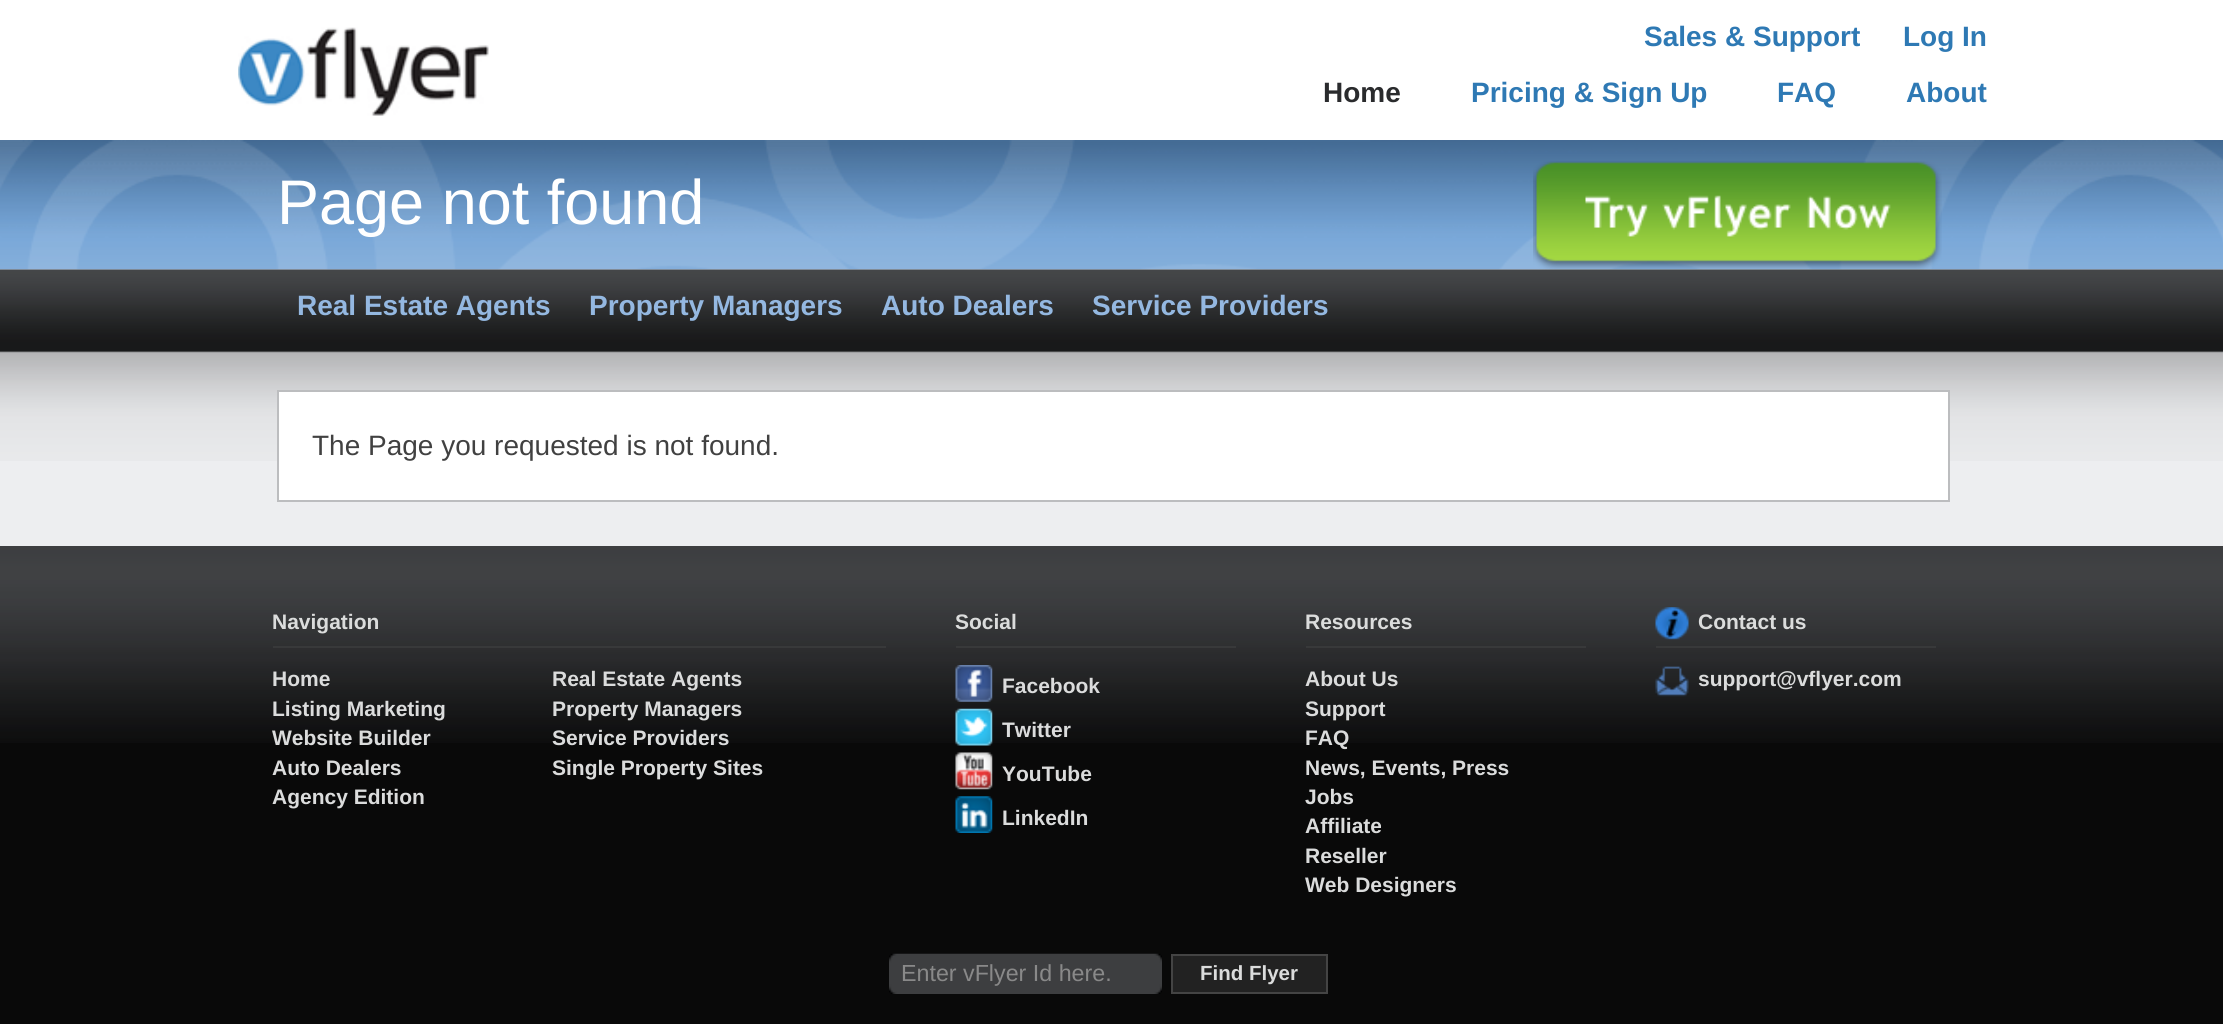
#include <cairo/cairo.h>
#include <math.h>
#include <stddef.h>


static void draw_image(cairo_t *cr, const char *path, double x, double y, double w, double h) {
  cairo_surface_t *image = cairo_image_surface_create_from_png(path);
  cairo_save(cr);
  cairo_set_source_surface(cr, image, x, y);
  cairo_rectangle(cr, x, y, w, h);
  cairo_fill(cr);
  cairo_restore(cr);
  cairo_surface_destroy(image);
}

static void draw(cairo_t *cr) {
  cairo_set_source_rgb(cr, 237 / 255.0, 238 / 255.0, 240 / 255.0);
  cairo_paint(cr);
  cairo_set_source_rgb(cr, 1, 1, 1);
  cairo_rectangle(cr, 0, 0, 2223, 140);
  cairo_fill(cr);
  draw_image(cr, "images/1.png", 238, 27, 251, 89);
  draw_image(cr, "images/2.png", 0, 140, 2223, 130);
  draw_image(cr, "images/4.png", 0, 269, 2223, 192);
  draw_image(cr, "images/3.png", 1533, 161, 409, 109);
  cairo_rectangle(cr, 278, 391, 1671, 110);
  cairo_fill_preserve(cr);
  cairo_set_source_rgb(cr, 188 / 255.0, 189 / 255.0, 191 / 255.0);
  cairo_stroke(cr);
  cairo_set_source_rgb(cr, 9 / 255.0, 9 / 255.0, 9 / 255.0);
  cairo_rectangle(cr, 0, 743, 2223, 281);
  cairo_fill(cr);
  draw_image(cr, "images/5.png", 0, 546, 2223, 197);
  cairo_set_source_rgb(cr, 56 / 255.0, 57 / 255.0, 58 / 255.0);
  cairo_rectangle(cr, 273, 646, 613, 2);
  cairo_fill(cr);
  cairo_rectangle(cr, 956, 646, 280, 2);
  cairo_fill(cr);
  draw_image(cr, "images/6.png", 955, 665, 38, 37);
  draw_image(cr, "images/7.png", 955, 708, 38, 38);
  draw_image(cr, "images/8.png", 955, 752, 38, 38);
  draw_image(cr, "images/9.png", 955, 796, 38, 37);
  cairo_rectangle(cr, 1306, 646, 280, 2);
  cairo_fill(cr);
  cairo_rectangle(cr, 1656, 646, 280, 2);
  cairo_fill(cr);
  draw_image(cr, "images/10.png", 1655, 607, 34, 33);
  draw_image(cr, "images/11.png", 1655, 666, 34, 31);
  draw_image(cr, "images/12.png", 889, 953, 273, 41);
  cairo_set_source_rgb(cr, 34 / 255.0, 34 / 255.0, 34 / 255.0);
  cairo_rectangle(cr, 1172, 955, 155, 38);
  cairo_fill_preserve(cr);
  cairo_set_source_rgb(cr, 68 / 255.0, 68 / 255.0, 68 / 255.0);
  cairo_stroke(cr);
  cairo_select_font_face(cr, "Liberation Sans", CAIRO_FONT_SLANT_NORMAL, CAIRO_FONT_WEIGHT_BOLD);
  cairo_set_font_size(cr, 28);
  cairo_set_source_rgb(cr, 46 / 255.0, 121 / 255.0, 180 / 255.0);
  cairo_move_to(cr, 1644, 46);
  cairo_show_text(cr, "Sales & Support");
  cairo_move_to(cr, 1903, 46);
  cairo_show_text(cr, "Log In");
  cairo_set_source_rgb(cr, 42 / 255.0, 43 / 255.0, 45 / 255.0);
  cairo_move_to(cr, 1323, 102);
  cairo_show_text(cr, "Home");
  cairo_set_source_rgb(cr, 46 / 255.0, 121 / 255.0, 180 / 255.0);
  cairo_move_to(cr, 1471, 102);
  cairo_show_text(cr, "Pricing & Sign Up");
  cairo_move_to(cr, 1777, 102);
  cairo_show_text(cr, "FAQ");
  cairo_move_to(cr, 1906, 102);
  cairo_show_text(cr, "About");
  cairo_select_font_face(cr, "Liberation Sans", CAIRO_FONT_SLANT_NORMAL, CAIRO_FONT_WEIGHT_NORMAL);
  cairo_set_font_size(cr, 63);
  cairo_set_source_rgb(cr, 1, 1, 1);
  cairo_move_to(cr, 277, 224);
  cairo_show_text(cr, "Page not found");
  cairo_select_font_face(cr, "Liberation Sans", CAIRO_FONT_SLANT_NORMAL, CAIRO_FONT_WEIGHT_BOLD);
  cairo_set_font_size(cr, 28);
  cairo_set_source_rgb(cr, 148 / 255.0, 184 / 255.0, 225 / 255.0);
  cairo_move_to(cr, 297, 315);
  cairo_show_text(cr, "Real Estate Agents");
  cairo_move_to(cr, 589, 315);
  cairo_show_text(cr, "Property Managers");
  cairo_move_to(cr, 881, 315);
  cairo_show_text(cr, "Auto Dealers");
  cairo_move_to(cr, 1092, 315);
  cairo_show_text(cr, "Service Providers");
  cairo_select_font_face(cr, "Liberation Sans", CAIRO_FONT_SLANT_NORMAL, CAIRO_FONT_WEIGHT_NORMAL);
  cairo_set_source_rgb(cr, 65 / 255.0, 65 / 255.0, 65 / 255.0);
  cairo_move_to(cr, 312, 455);
  cairo_show_text(cr, "The Page you requested is not found.");
  cairo_select_font_face(cr, "Liberation Sans", CAIRO_FONT_SLANT_NORMAL, CAIRO_FONT_WEIGHT_BOLD);
  cairo_set_font_size(cr, 21);
  cairo_set_source_rgb(cr, 219 / 255.0, 220 / 255.0, 220 / 255.0);
  cairo_move_to(cr, 272, 629);
  cairo_show_text(cr, "Navigation");
  cairo_move_to(cr, 272, 686);
  cairo_show_text(cr, "Home");
  cairo_move_to(cr, 552, 686);
  cairo_show_text(cr, "Real Estate Agents");
  cairo_move_to(cr, 272, 716);
  cairo_show_text(cr, "Listing Marketing");
  cairo_move_to(cr, 552, 716);
  cairo_show_text(cr, "Property Managers");
  cairo_move_to(cr, 272, 745);
  cairo_show_text(cr, "Website Builder");
  cairo_move_to(cr, 552, 745);
  cairo_show_text(cr, "Service Providers");
  cairo_move_to(cr, 272, 775);
  cairo_show_text(cr, "Auto Dealers");
  cairo_move_to(cr, 552, 775);
  cairo_show_text(cr, "Single Property Sites");
  cairo_move_to(cr, 272, 804);
  cairo_show_text(cr, "Agency Edition");
  cairo_move_to(cr, 955, 629);
  cairo_show_text(cr, "Social");
  cairo_move_to(cr, 1002, 693);
  cairo_show_text(cr, "Facebook");
  cairo_move_to(cr, 1002, 737);
  cairo_show_text(cr, "Twitter");
  cairo_move_to(cr, 1002, 781);
  cairo_show_text(cr, "YouTube");
  cairo_move_to(cr, 1002, 825);
  cairo_show_text(cr, "LinkedIn");
  cairo_move_to(cr, 1305, 629);
  cairo_show_text(cr, "Resources");
  cairo_move_to(cr, 1305, 686);
  cairo_show_text(cr, "About Us");
  cairo_move_to(cr, 1305, 716);
  cairo_show_text(cr, "Support");
  cairo_move_to(cr, 1305, 745);
  cairo_show_text(cr, "FAQ");
  cairo_move_to(cr, 1305, 775);
  cairo_show_text(cr, "News, Events, Press");
  cairo_move_to(cr, 1305, 804);
  cairo_show_text(cr, "Jobs");
  cairo_move_to(cr, 1305, 833);
  cairo_show_text(cr, "Affiliate");
  cairo_move_to(cr, 1305, 863);
  cairo_show_text(cr, "Reseller");
  cairo_move_to(cr, 1305, 892);
  cairo_show_text(cr, "Web Designers");
  cairo_move_to(cr, 1698, 629);
  cairo_show_text(cr, "Contact us");
  cairo_move_to(cr, 1698, 686);
  cairo_show_text(cr, "support@vflyer.com");
  cairo_select_font_face(cr, "Liberation Sans", CAIRO_FONT_SLANT_NORMAL, CAIRO_FONT_WEIGHT_NORMAL);
  cairo_set_font_size(cr, 23.25);
  cairo_set_source_rgb(cr, 137 / 255.0, 137 / 255.0, 137 / 255.0);
  cairo_move_to(cr, 901, 981);
  cairo_show_text(cr, "Enter vFlyer Id here.");
  cairo_select_font_face(cr, "Liberation Sans", CAIRO_FONT_SLANT_NORMAL, CAIRO_FONT_WEIGHT_BOLD);
  cairo_set_font_size(cr, 20.5);
  cairo_set_source_rgb(cr, 219 / 255.0, 220 / 255.0, 220 / 255.0);
  cairo_move_to(cr, 1200, 980);
  cairo_show_text(cr, "Find Flyer");
}

int main(void) {
  cairo_surface_t *surface = cairo_image_surface_create(CAIRO_FORMAT_RGB24, 2223, 1024);
  cairo_t *cr = cairo_create(surface);
  cairo_font_options_t *options = cairo_font_options_create();
  cairo_font_options_set_hint_metrics(options, CAIRO_HINT_METRICS_OFF);
  cairo_font_options_set_hint_style(options, CAIRO_HINT_STYLE_NONE);
  cairo_set_font_options(cr, options);
  cairo_set_miter_limit(cr, 4);
  draw(cr);
  cairo_surface_write_to_png(surface, "out.png");
  cairo_font_options_destroy(options);
  cairo_destroy(cr);
  cairo_surface_destroy(surface);
  return 0;
}
